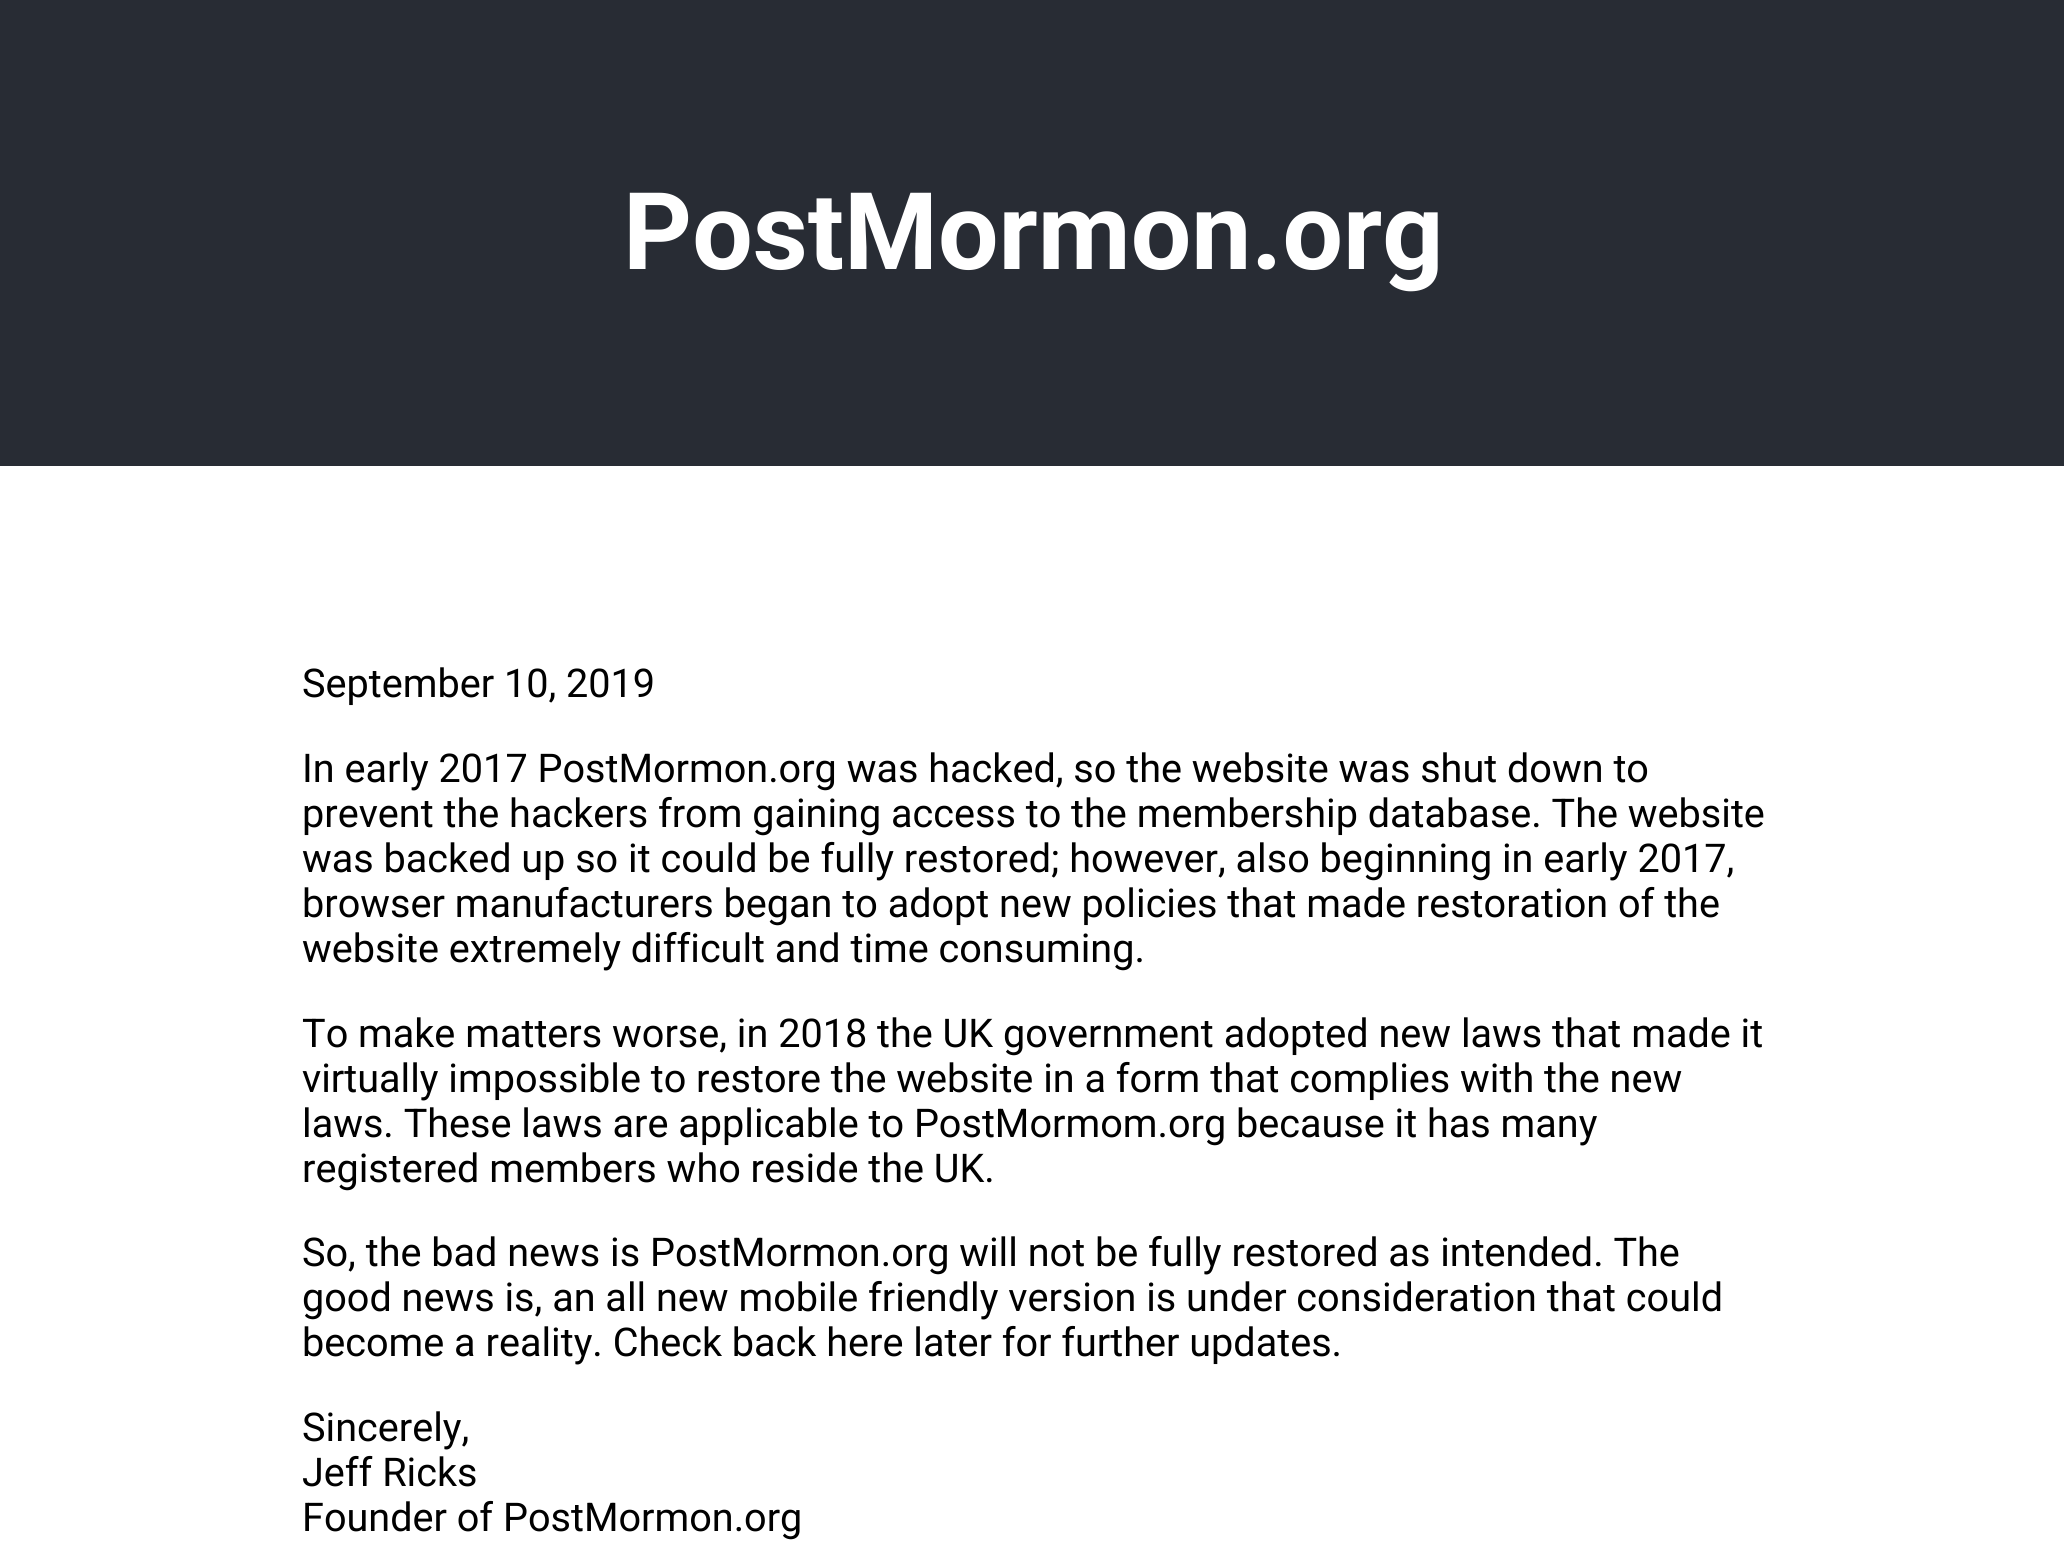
#include <cairo/cairo.h>
#include <math.h>
#include <stddef.h>


static void draw(cairo_t *cr) {
  cairo_set_source_rgb(cr, 1, 1, 1);
  cairo_paint(cr);
  cairo_set_source_rgb(cr, 40 / 255.0, 44 / 255.0, 52 / 255.0);
  cairo_rectangle(cr, 0, 0, 2064, 466);
  cairo_fill(cr);
  cairo_select_font_face(cr, "Roboto", CAIRO_FONT_SLANT_NORMAL, CAIRO_FONT_WEIGHT_BOLD);
  cairo_set_font_size(cr, 107.25);
  cairo_set_source_rgb(cr, 1, 1, 1);
  cairo_move_to(cr, 623, 269);
  cairo_show_text(cr, "PostMormon.org");
  cairo_select_font_face(cr, "Roboto", CAIRO_FONT_SLANT_NORMAL, CAIRO_FONT_WEIGHT_NORMAL);
  cairo_set_font_size(cr, 39.6);
  cairo_set_source_rgb(cr, 0, 0, 0);
  cairo_move_to(cr, 302, 697);
  cairo_show_text(cr, "September 10, 2019");
  cairo_move_to(cr, 302, 782);
  cairo_show_text(cr, "In early 2017 PostMormon.org was hacked, so the website was shut down to");
  cairo_move_to(cr, 302, 827);
  cairo_show_text(cr, "prevent the hackers from gaining access to the membership database. The website");
  cairo_move_to(cr, 302, 872);
  cairo_show_text(cr, "was backed up so it could be fully restored; however, also beginning in early 2017,");
  cairo_move_to(cr, 302, 917);
  cairo_show_text(cr, "browser manufacturers began to adopt new policies that made restoration of the");
  cairo_move_to(cr, 302, 962);
  cairo_show_text(cr, "website extremely difficult and time consuming.");
  cairo_move_to(cr, 302, 1047);
  cairo_show_text(cr, "To make matters worse, in 2018 the UK government adopted new laws that made it");
  cairo_move_to(cr, 302, 1092);
  cairo_show_text(cr, "virtually impossible to restore the website in a form that complies with the new");
  cairo_move_to(cr, 302, 1137);
  cairo_show_text(cr, "laws. These laws are applicable to PostMormom.org because it has many");
  cairo_move_to(cr, 302, 1182);
  cairo_show_text(cr, "registered members who reside the UK.");
  cairo_move_to(cr, 302, 1266);
  cairo_show_text(cr, "So, the bad news is PostMormon.org will not be fully restored as intended. The");
  cairo_move_to(cr, 302, 1311);
  cairo_show_text(cr, "good news is, an all new mobile friendly version is under consideration that could");
  cairo_move_to(cr, 302, 1356);
  cairo_show_text(cr, "become a reality. Check back here later for further updates.");
  cairo_move_to(cr, 302, 1441);
  cairo_show_text(cr, "Sincerely,");
  cairo_move_to(cr, 302, 1486);
  cairo_show_text(cr, "Jeff Ricks");
  cairo_move_to(cr, 302, 1531);
  cairo_show_text(cr, "Founder of PostMormon.org");
}

int main(void) {
  cairo_surface_t *surface = cairo_image_surface_create(CAIRO_FORMAT_RGB24, 2064, 1554);
  cairo_t *cr = cairo_create(surface);
  cairo_font_options_t *options = cairo_font_options_create();
  cairo_font_options_set_hint_metrics(options, CAIRO_HINT_METRICS_OFF);
  cairo_font_options_set_hint_style(options, CAIRO_HINT_STYLE_NONE);
  cairo_set_font_options(cr, options);
  cairo_set_miter_limit(cr, 4);
  draw(cr);
  cairo_surface_write_to_png(surface, "out.png");
  cairo_font_options_destroy(options);
  cairo_destroy(cr);
  cairo_surface_destroy(surface);
  return 0;
}
